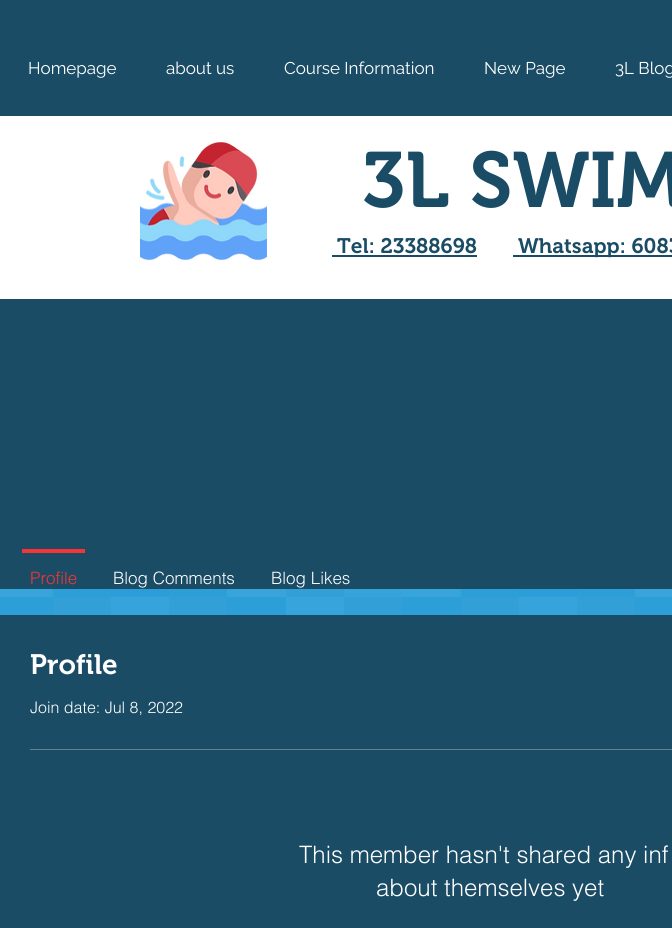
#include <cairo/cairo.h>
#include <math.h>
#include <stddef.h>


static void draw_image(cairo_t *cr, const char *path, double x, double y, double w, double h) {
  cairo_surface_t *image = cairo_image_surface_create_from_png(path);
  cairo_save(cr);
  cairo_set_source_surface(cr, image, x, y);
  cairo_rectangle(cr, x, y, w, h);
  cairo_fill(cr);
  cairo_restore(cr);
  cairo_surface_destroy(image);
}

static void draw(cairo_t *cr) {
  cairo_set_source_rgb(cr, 43 / 255.0, 158 / 255.0, 217 / 255.0);
  cairo_paint(cr);
  cairo_set_source_rgb(cr, 26 / 255.0, 76 / 255.0, 102 / 255.0);
  cairo_rectangle(cr, 0, 0, 672, 116);
  cairo_fill(cr);
  cairo_set_source_rgb(cr, 1, 1, 1);
  cairo_rectangle(cr, 0, 116, 672, 183);
  cairo_fill(cr);
  draw_image(cr, "images/1.png", 140, 142, 127, 119);
  cairo_set_source_rgb(cr, 26 / 255.0, 76 / 255.0, 102 / 255.0);
  cairo_rectangle(cr, 332, 255, 145, 2);
  cairo_fill(cr);
  cairo_rectangle(cr, 513, 255, 159, 2);
  cairo_fill(cr);
  cairo_rectangle(cr, 0, 299, 672, 290);
  cairo_fill(cr);
  cairo_set_source_rgb(cr, 247 / 255.0, 51 / 255.0, 51 / 255.0);
  cairo_rectangle(cr, 22, 549, 63, 4);
  cairo_fill(cr);
  cairo_set_source_rgb(cr, 26 / 255.0, 76 / 255.0, 102 / 255.0);
  cairo_rectangle(cr, 0, 615, 672, 313);
  cairo_fill(cr);
  cairo_set_source_rgb(cr, 95 / 255.0, 130 / 255.0, 148 / 255.0);
  cairo_rectangle(cr, 30, 749, 642, 1);
  cairo_fill(cr);
  draw_image(cr, "images/2.png", 0, 589, 672, 26);
  cairo_select_font_face(cr, "Raleway", CAIRO_FONT_SLANT_NORMAL, CAIRO_FONT_WEIGHT_NORMAL);
  cairo_set_font_size(cr, 17);
  cairo_set_source_rgb(cr, 1, 1, 1);
  cairo_move_to(cr, 28, 74);
  cairo_show_text(cr, "Homepage");
  cairo_move_to(cr, 166, 74);
  cairo_show_text(cr, "about us");
  cairo_move_to(cr, 284, 74);
  cairo_show_text(cr, "Course Information");
  cairo_move_to(cr, 484, 74);
  cairo_show_text(cr, "New Page");
  cairo_move_to(cr, 615, 74);
  cairo_show_text(cr, "3L Blog");
  cairo_select_font_face(cr, "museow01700 SemiBold", CAIRO_FONT_SLANT_NORMAL, CAIRO_FONT_WEIGHT_NORMAL);
  cairo_set_font_size(cr, 78);
  cairo_set_source_rgb(cr, 26 / 255.0, 76 / 255.0, 102 / 255.0);
  cairo_move_to(cr, 362, 207);
  cairo_show_text(cr, "3L SWIM");
  cairo_set_font_size(cr, 21);
  cairo_move_to(cr, 337, 253);
  cairo_show_text(cr, "Tel: 23388698");
  cairo_move_to(cr, 518, 253);
  cairo_show_text(cr, "Whatsapp: 6083");
  cairo_select_font_face(cr, "helvetica Light", CAIRO_FONT_SLANT_NORMAL, CAIRO_FONT_WEIGHT_NORMAL);
  cairo_set_font_size(cr, 17);
  cairo_set_source_rgb(cr, 247 / 255.0, 51 / 255.0, 51 / 255.0);
  cairo_move_to(cr, 30, 584);
  cairo_show_text(cr, "Profile");
  cairo_set_source_rgb(cr, 1, 1, 1);
  cairo_move_to(cr, 113, 584);
  cairo_show_text(cr, "Blog Comments");
  cairo_move_to(cr, 271, 584);
  cairo_show_text(cr, "Blog Likes");
  cairo_select_font_face(cr, "museow01700 SemiBold", CAIRO_FONT_SLANT_NORMAL, CAIRO_FONT_WEIGHT_NORMAL);
  cairo_set_font_size(cr, 28);
  cairo_move_to(cr, 30, 674);
  cairo_show_text(cr, "Profile");
  cairo_select_font_face(cr, "helvetica Light", CAIRO_FONT_SLANT_NORMAL, CAIRO_FONT_WEIGHT_NORMAL);
  cairo_set_font_size(cr, 16);
  cairo_move_to(cr, 30, 713);
  cairo_show_text(cr, "Join date: Jul 8, 2022");
  cairo_set_font_size(cr, 24);
  cairo_move_to(cr, 299, 863);
  cairo_show_text(cr, "This member hasn't shared any inf");
  cairo_move_to(cr, 376, 896);
  cairo_show_text(cr, "about themselves yet");
}

int main(void) {
  cairo_surface_t *surface = cairo_image_surface_create(CAIRO_FORMAT_RGB24, 672, 928);
  cairo_t *cr = cairo_create(surface);
  cairo_font_options_t *options = cairo_font_options_create();
  cairo_font_options_set_hint_metrics(options, CAIRO_HINT_METRICS_OFF);
  cairo_font_options_set_hint_style(options, CAIRO_HINT_STYLE_NONE);
  cairo_set_font_options(cr, options);
  cairo_set_miter_limit(cr, 4);
  draw(cr);
  cairo_surface_write_to_png(surface, "out.png");
  cairo_font_options_destroy(options);
  cairo_destroy(cr);
  cairo_surface_destroy(surface);
  return 0;
}
